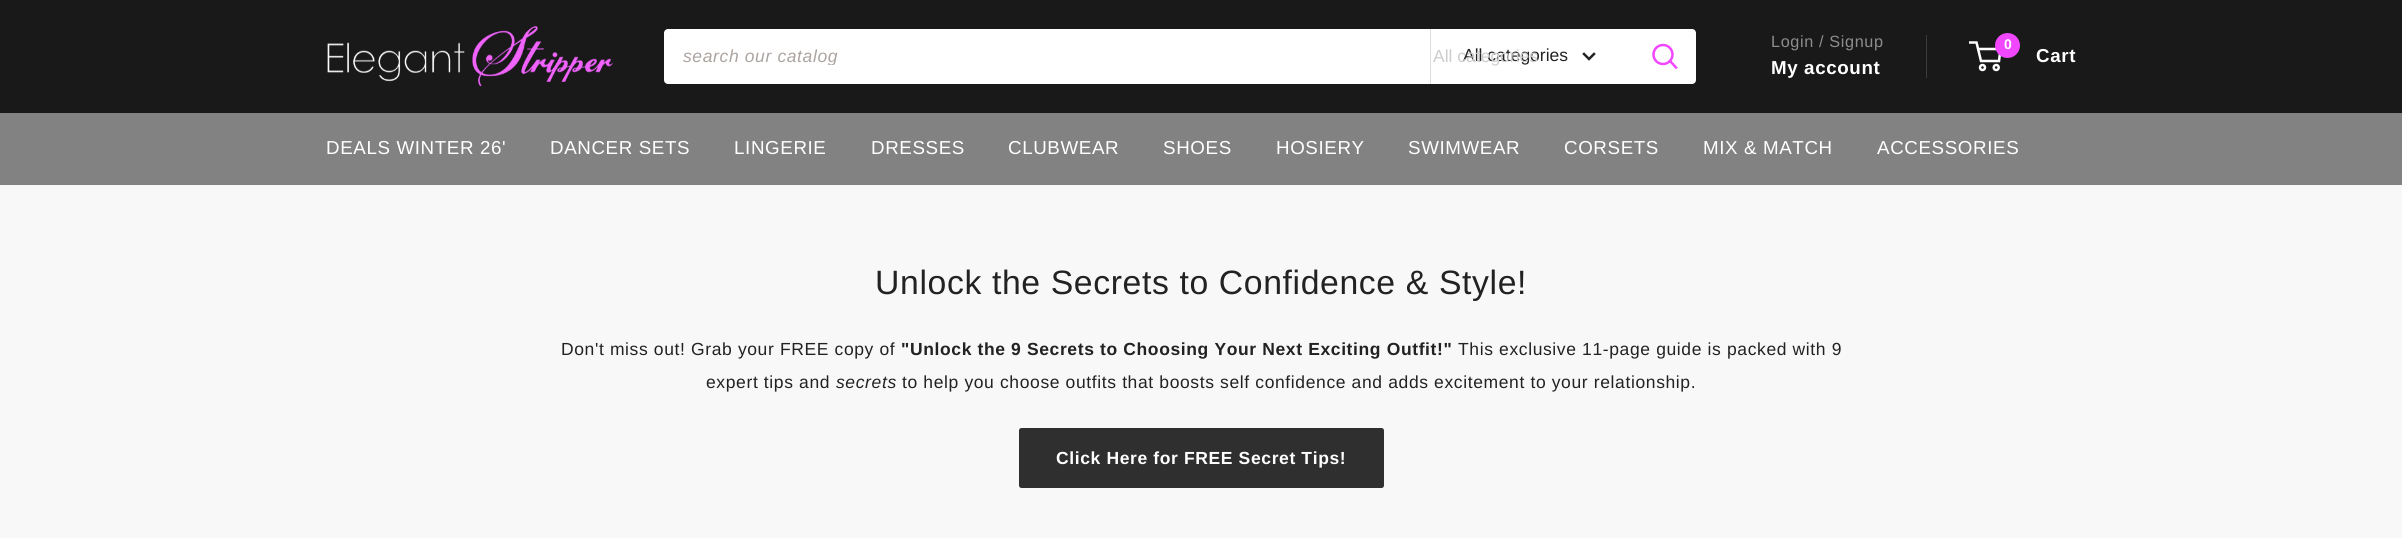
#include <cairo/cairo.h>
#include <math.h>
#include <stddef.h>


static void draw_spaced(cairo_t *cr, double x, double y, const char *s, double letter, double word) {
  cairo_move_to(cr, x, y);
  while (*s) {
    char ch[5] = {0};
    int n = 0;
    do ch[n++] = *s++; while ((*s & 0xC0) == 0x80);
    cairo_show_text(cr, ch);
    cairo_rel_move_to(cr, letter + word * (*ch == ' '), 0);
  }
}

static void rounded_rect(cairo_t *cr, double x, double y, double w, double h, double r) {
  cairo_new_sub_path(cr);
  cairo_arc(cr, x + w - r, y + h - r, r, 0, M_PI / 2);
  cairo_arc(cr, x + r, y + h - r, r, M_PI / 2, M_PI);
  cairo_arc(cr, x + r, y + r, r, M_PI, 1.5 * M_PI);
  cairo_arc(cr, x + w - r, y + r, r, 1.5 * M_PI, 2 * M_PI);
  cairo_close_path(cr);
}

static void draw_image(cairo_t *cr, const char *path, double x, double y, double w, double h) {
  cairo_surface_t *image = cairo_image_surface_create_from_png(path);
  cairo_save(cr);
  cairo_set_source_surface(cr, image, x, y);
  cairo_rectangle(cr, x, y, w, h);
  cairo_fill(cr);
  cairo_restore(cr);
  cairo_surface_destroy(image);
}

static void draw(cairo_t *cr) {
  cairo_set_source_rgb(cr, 248 / 255.0, 248 / 255.0, 248 / 255.0);
  cairo_paint(cr);
  cairo_set_source_rgb(cr, 25 / 255.0, 25 / 255.0, 25 / 255.0);
  cairo_rectangle(cr, 0, 0, 2402, 113);
  cairo_fill(cr);
  draw_image(cr, "images/1.png", 327, 26, 286, 61);
  cairo_set_source_rgb(cr, 1, 1, 1);
  rounded_rect(cr, 664, 29, 1032, 55, 4);
  cairo_fill(cr);
  cairo_set_source_rgb(cr, 221 / 255.0, 221 / 255.0, 221 / 255.0);
  cairo_rectangle(cr, 1430, 29, 1, 55);
  cairo_fill(cr);
  cairo_new_path(cr);
  cairo_move_to(cr, 1594, 54);
  cairo_line_to(cr, 1589, 59);
  cairo_line_to(cr, 1584, 54);
  cairo_set_source_rgb(cr, 34 / 255.0, 34 / 255.0, 34 / 255.0);
  cairo_set_line_width(cr, 2.5);
  cairo_set_line_cap(cr, CAIRO_LINE_CAP_SQUARE);
  cairo_stroke(cr);
  cairo_new_path(cr);
  cairo_move_to(cr, 1676, 67.5);
  cairo_line_to(cr, 1670, 61);
  cairo_set_source_rgb(cr, 241 / 255.0, 71 / 255.0, 1);
  cairo_stroke(cr);
  cairo_arc(cr, 1663, 54.5, 9.5, 0, 2 * M_PI);
  cairo_set_line_cap(cr, CAIRO_LINE_CAP_BUTT);
  cairo_stroke(cr);
  cairo_set_source_rgb(cr, 60 / 255.0, 60 / 255.0, 60 / 255.0);
  cairo_rectangle(cr, 1926, 35, 1, 43);
  cairo_fill(cr);
  cairo_arc(cr, 1982.5, 67.5, 2.5, 0, 2 * M_PI);
  cairo_set_source_rgb(cr, 1, 1, 1);
  cairo_stroke(cr);
  cairo_arc(cr, 1996.2, 67.5, 2.5, 0, 2 * M_PI);
  cairo_stroke(cr);
  cairo_new_path(cr);
  cairo_move_to(cr, 1978, 49);
  cairo_line_to(cr, 2000.5, 49);
  cairo_line_to(cr, 1999, 61);
  cairo_line_to(cr, 1981, 61);
  cairo_line_to(cr, 1976.5, 42.5);
  cairo_line_to(cr, 1969, 42.5);
  cairo_stroke(cr);
  cairo_set_source_rgb(cr, 241 / 255.0, 71 / 255.0, 1);
  cairo_arc(cr, 2007.5, 45.5, 12.5, 0, 2 * M_PI);
  cairo_fill(cr);
  cairo_set_source_rgb(cr, 130 / 255.0, 130 / 255.0, 130 / 255.0);
  cairo_rectangle(cr, 0, 113, 2402, 72);
  cairo_fill(cr);
  cairo_set_source_rgb(cr, 47 / 255.0, 47 / 255.0, 47 / 255.0);
  rounded_rect(cr, 1019, 428, 365, 60, 2.5);
  cairo_fill(cr);
  cairo_save(cr);
  cairo_rectangle(cr, 683, 45, 728, 20);
  cairo_clip(cr);
  cairo_select_font_face(cr, "Liberation Sans", CAIRO_FONT_SLANT_ITALIC, CAIRO_FONT_WEIGHT_NORMAL);
  cairo_set_font_size(cr, 17.5);
  cairo_set_source_rgb(cr, 172 / 255.0, 164 / 255.0, 160 / 255.0);
  draw_spaced(cr, 683, 62, "search our catalog", 0.62, 0);
  cairo_restore(cr);
  cairo_select_font_face(cr, "Liberation Sans", CAIRO_FONT_SLANT_NORMAL, CAIRO_FONT_WEIGHT_NORMAL);
  cairo_set_font_size(cr, 17.5);
  cairo_set_source_rgb(cr, 34 / 255.0, 34 / 255.0, 34 / 255.0);
  cairo_move_to(cr, 1463, 61);
  cairo_show_text(cr, "All categories");
  cairo_set_source_rgb(cr, 205 / 255.0, 205 / 255.0, 205 / 255.0);
  cairo_move_to(cr, 1433, 62);
  cairo_show_text(cr, "All categories");
  cairo_set_font_size(cr, 16.25);
  cairo_set_source_rgb(cr, 141 / 255.0, 141 / 255.0, 141 / 255.0);
  draw_spaced(cr, 1771, 47, "Login / Signup", 0.62, 0);
  cairo_select_font_face(cr, "Liberation Sans", CAIRO_FONT_SLANT_NORMAL, CAIRO_FONT_WEIGHT_BOLD);
  cairo_set_font_size(cr, 18.75);
  cairo_set_source_rgb(cr, 1, 1, 1);
  draw_spaced(cr, 1771, 74, "My account", 0.62, 0);
  cairo_set_font_size(cr, 14);
  draw_spaced(cr, 2004, 49, "0", 1, 0);
  cairo_set_font_size(cr, 18.75);
  draw_spaced(cr, 2036, 62, "Cart", 0.62, 0);
  cairo_select_font_face(cr, "Liberation Sans", CAIRO_FONT_SLANT_NORMAL, CAIRO_FONT_WEIGHT_NORMAL);
  draw_spaced(cr, 326, 154, "DEALS WINTER 26'", 0.62, 0);
  draw_spaced(cr, 550, 154, "DANCER SETS", 0.62, 0);
  draw_spaced(cr, 734, 154, "LINGERIE", 0.62, 0);
  draw_spaced(cr, 871, 154, "DRESSES", 0.62, 0);
  draw_spaced(cr, 1008, 154, "CLUBWEAR", 0.62, 0);
  draw_spaced(cr, 1163, 154, "SHOES", 0.62, 0);
  draw_spaced(cr, 1276, 154, "HOSIERY", 0.62, 0);
  draw_spaced(cr, 1408, 154, "SWIMWEAR", 0.62, 0);
  draw_spaced(cr, 1564, 154, "CORSETS", 0.62, 0);
  draw_spaced(cr, 1703, 154, "MIX & MATCH", 0.62, 0);
  draw_spaced(cr, 1877, 154, "ACCESSORIES", 0.62, 0);
  cairo_set_font_size(cr, 33.75);
  cairo_set_source_rgb(cr, 34 / 255.0, 34 / 255.0, 34 / 255.0);
  draw_spaced(cr, 875, 294, "Unlock the Secrets to Confidence & Style!", 0.62, 0);
  cairo_set_font_size(cr, 17.5);
  draw_spaced(cr, 561, 355, "Don't miss out! Grab your FREE copy of", 0.62, 0);
  cairo_select_font_face(cr, "Liberation Sans", CAIRO_FONT_SLANT_NORMAL, CAIRO_FONT_WEIGHT_BOLD);
  draw_spaced(cr, 901, 355, "\"Unlock the 9 Secrets to Choosing Your Next Exciting Outfit!\"", 0.62, 0);
  cairo_select_font_face(cr, "Liberation Sans", CAIRO_FONT_SLANT_NORMAL, CAIRO_FONT_WEIGHT_NORMAL);
  draw_spaced(cr, 1458, 355, "This exclusive 11-page guide is packed with 9", 0.62, 0);
  draw_spaced(cr, 706, 388, "expert tips and", 0.62, 0);
  cairo_select_font_face(cr, "Liberation Sans", CAIRO_FONT_SLANT_ITALIC, CAIRO_FONT_WEIGHT_NORMAL);
  draw_spaced(cr, 836, 388, "secrets", 0.62, 0);
  cairo_select_font_face(cr, "Liberation Sans", CAIRO_FONT_SLANT_NORMAL, CAIRO_FONT_WEIGHT_NORMAL);
  draw_spaced(cr, 902, 388, "to help you choose outfits that boosts self confidence and adds excitement to your relationship.", 0.62, 0);
  cairo_select_font_face(cr, "Liberation Sans", CAIRO_FONT_SLANT_NORMAL, CAIRO_FONT_WEIGHT_BOLD);
  cairo_set_source_rgb(cr, 1, 1, 1);
  draw_spaced(cr, 1056, 464, "Click Here for FREE Secret Tips!", 0.62, 0);
}

int main(void) {
  cairo_surface_t *surface = cairo_image_surface_create(CAIRO_FORMAT_RGB24, 2402, 538);
  cairo_t *cr = cairo_create(surface);
  cairo_font_options_t *options = cairo_font_options_create();
  cairo_font_options_set_hint_metrics(options, CAIRO_HINT_METRICS_OFF);
  cairo_font_options_set_hint_style(options, CAIRO_HINT_STYLE_NONE);
  cairo_set_font_options(cr, options);
  cairo_set_miter_limit(cr, 4);
  draw(cr);
  cairo_surface_write_to_png(surface, "out.png");
  cairo_font_options_destroy(options);
  cairo_destroy(cr);
  cairo_surface_destroy(surface);
  return 0;
}
